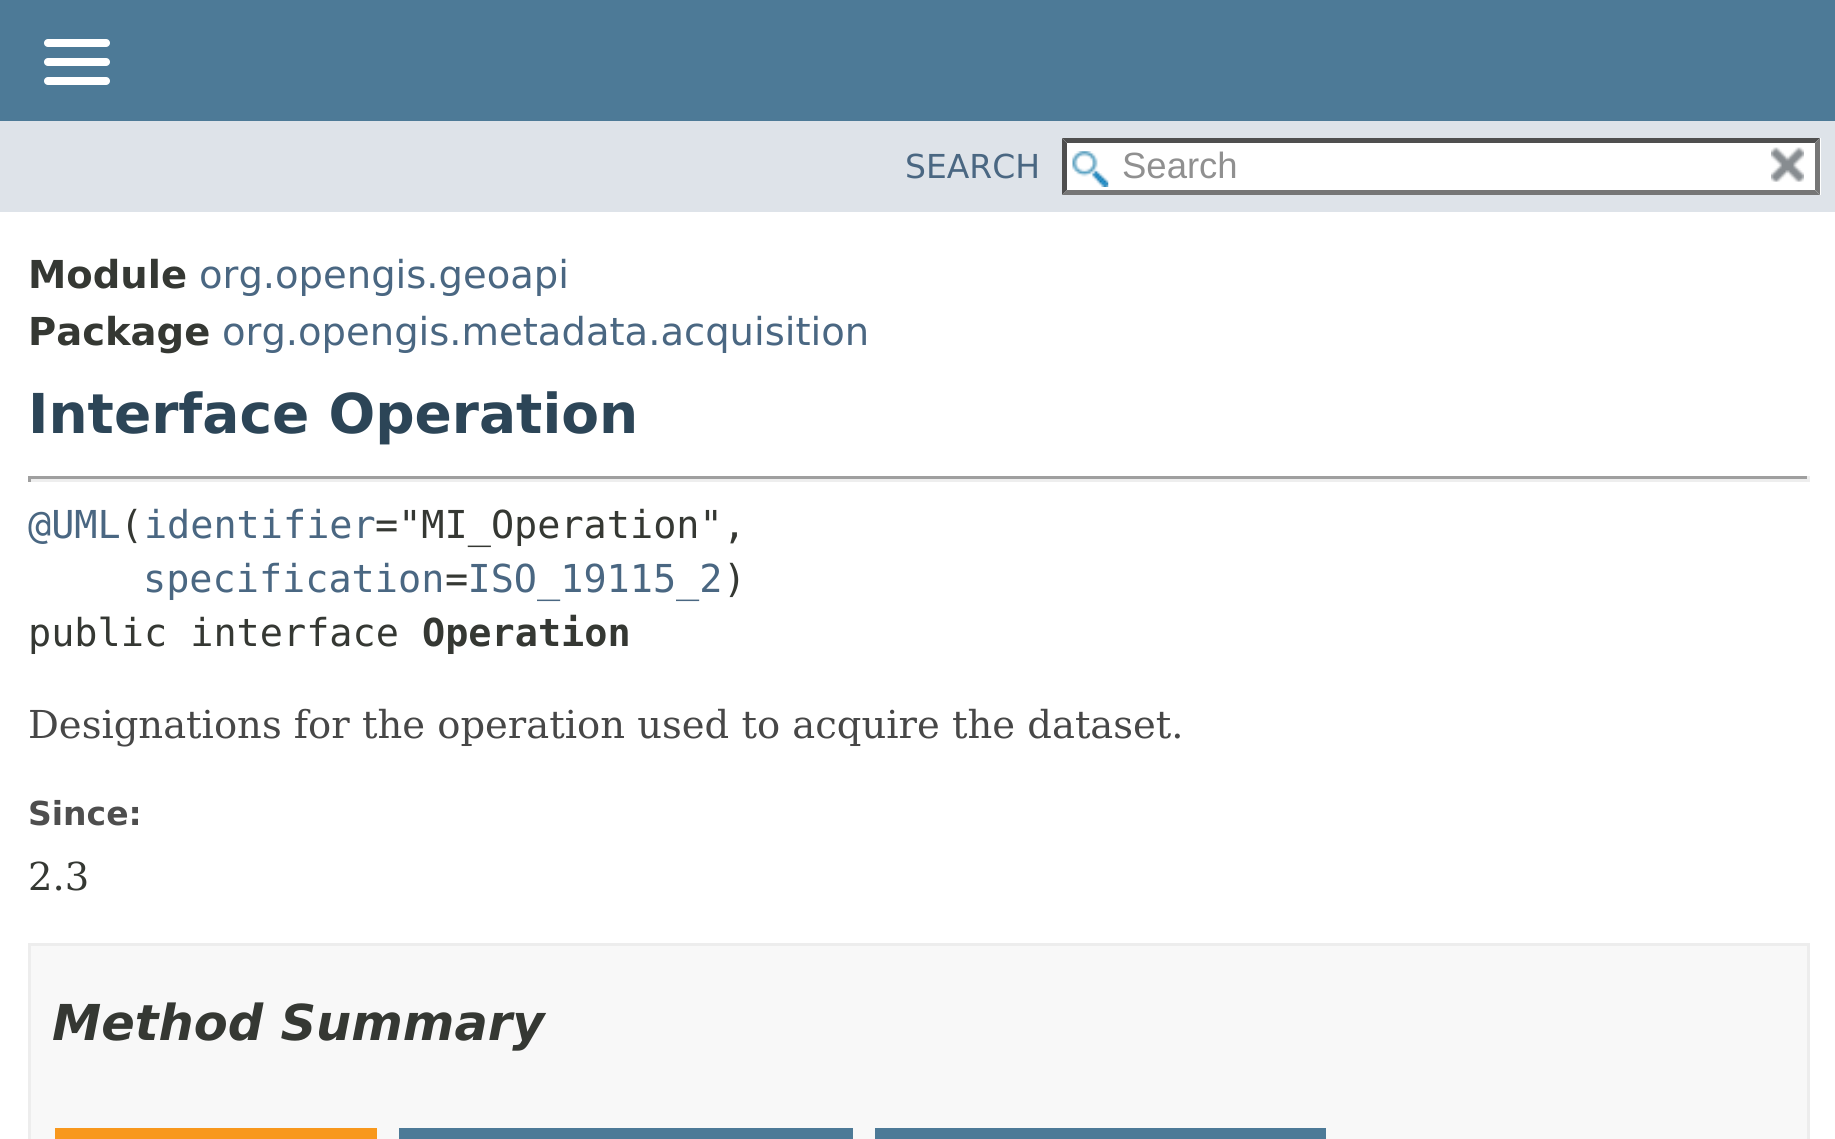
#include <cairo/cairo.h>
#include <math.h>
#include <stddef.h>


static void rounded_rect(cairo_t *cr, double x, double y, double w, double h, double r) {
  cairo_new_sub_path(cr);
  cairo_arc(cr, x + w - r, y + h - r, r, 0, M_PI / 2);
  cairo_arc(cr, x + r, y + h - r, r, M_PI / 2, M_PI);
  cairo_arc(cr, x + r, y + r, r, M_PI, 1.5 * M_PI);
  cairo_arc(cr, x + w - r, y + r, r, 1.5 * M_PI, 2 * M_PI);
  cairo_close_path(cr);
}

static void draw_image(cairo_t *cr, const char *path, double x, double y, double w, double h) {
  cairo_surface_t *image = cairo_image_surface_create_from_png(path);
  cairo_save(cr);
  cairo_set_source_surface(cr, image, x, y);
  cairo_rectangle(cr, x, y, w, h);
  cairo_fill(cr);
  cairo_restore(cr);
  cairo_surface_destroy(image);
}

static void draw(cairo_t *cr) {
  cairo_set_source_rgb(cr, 1, 1, 1);
  cairo_paint(cr);
  cairo_set_source_rgb(cr, 77 / 255.0, 122 / 255.0, 151 / 255.0);
  cairo_rectangle(cr, 0, 0, 1835, 121);
  cairo_fill(cr);
  cairo_set_source_rgb(cr, 1, 1, 1);
  rounded_rect(cr, 44, 39, 66, 8, 4);
  cairo_fill(cr);
  rounded_rect(cr, 44, 58, 66, 8, 4);
  cairo_fill(cr);
  rounded_rect(cr, 44, 77, 66, 8, 4);
  cairo_fill(cr);
  cairo_set_source_rgb(cr, 222 / 255.0, 227 / 255.0, 233 / 255.0);
  cairo_rectangle(cr, 0, 121, 1835, 91);
  cairo_fill(cr);
  cairo_set_source_rgb(cr, 1, 1, 1);
  cairo_rectangle(cr, 1062, 138, 759, 57);
  cairo_fill(cr);
  draw_image(cr, "images/1.png", 1072, 151, 37, 36);
  cairo_set_source_rgb(cr, 79 / 255.0, 79 / 255.0, 79 / 255.0);
  cairo_new_path(cr);
  cairo_move_to(cr, 1062, 138);
  cairo_line_to(cr, 1820, 138);
  cairo_line_to(cr, 1815, 143);
  cairo_line_to(cr, 1067, 143);
  cairo_close_path(cr);
  cairo_fill(cr);
  cairo_set_source_rgb(cr, 118 / 255.0, 118 / 255.0, 118 / 255.0);
  cairo_new_path(cr);
  cairo_move_to(cr, 1820, 138);
  cairo_line_to(cr, 1820, 195);
  cairo_line_to(cr, 1815, 190);
  cairo_line_to(cr, 1815, 143);
  cairo_close_path(cr);
  cairo_fill(cr);
  cairo_new_path(cr);
  cairo_move_to(cr, 1820, 195);
  cairo_line_to(cr, 1062, 195);
  cairo_line_to(cr, 1067, 190);
  cairo_line_to(cr, 1815, 190);
  cairo_close_path(cr);
  cairo_fill(cr);
  cairo_set_source_rgb(cr, 79 / 255.0, 79 / 255.0, 79 / 255.0);
  cairo_new_path(cr);
  cairo_move_to(cr, 1062, 195);
  cairo_line_to(cr, 1062, 138);
  cairo_line_to(cr, 1067, 143);
  cairo_line_to(cr, 1067, 190);
  cairo_close_path(cr);
  cairo_fill(cr);
  draw_image(cr, "images/2.png", 1771, 147, 33, 35);
  cairo_set_source_rgb(cr, 159 / 255.0, 159 / 255.0, 159 / 255.0);
  cairo_rectangle(cr, 28, 476, 1782, 3);
  cairo_fill(cr);
  cairo_set_source_rgb(cr, 238 / 255.0, 238 / 255.0, 238 / 255.0);
  cairo_rectangle(cr, 1807, 476, 3, 6);
  cairo_fill(cr);
  cairo_rectangle(cr, 28, 479, 1782, 3);
  cairo_fill(cr);
  cairo_set_source_rgb(cr, 159 / 255.0, 159 / 255.0, 159 / 255.0);
  cairo_rectangle(cr, 28, 476, 3, 6);
  cairo_fill(cr);
  cairo_set_source_rgb(cr, 248 / 255.0, 248 / 255.0, 248 / 255.0);
  cairo_rectangle(cr, 29.5, 944.5, 1779, 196);
  cairo_fill_preserve(cr);
  cairo_set_source_rgb(cr, 237 / 255.0, 237 / 255.0, 237 / 255.0);
  cairo_set_line_width(cr, 3);
  cairo_stroke(cr);
  cairo_set_source_rgb(cr, 248 / 255.0, 152 / 255.0, 29 / 255.0);
  cairo_rectangle(cr, 55, 1128, 322, 11);
  cairo_fill(cr);
  cairo_set_source_rgb(cr, 77 / 255.0, 122 / 255.0, 151 / 255.0);
  cairo_rectangle(cr, 399, 1128, 454, 11);
  cairo_fill(cr);
  cairo_rectangle(cr, 875, 1128, 451, 11);
  cairo_fill(cr);
  cairo_select_font_face(cr, "DejaVu Sans", CAIRO_FONT_SLANT_NORMAL, CAIRO_FONT_WEIGHT_NORMAL);
  cairo_set_font_size(cr, 33);
  cairo_set_source_rgb(cr, 74 / 255.0, 103 / 255.0, 130 / 255.0);
  cairo_move_to(cr, 905, 178);
  cairo_show_text(cr, "SEARCH");
  cairo_select_font_face(cr, "Liberation Sans", CAIRO_FONT_SLANT_NORMAL, CAIRO_FONT_WEIGHT_NORMAL);
  cairo_set_font_size(cr, 36.5);
  cairo_set_source_rgb(cr, 144 / 255.0, 144 / 255.0, 144 / 255.0);
  cairo_move_to(cr, 1122, 178);
  cairo_show_text(cr, "Search");
  cairo_select_font_face(cr, "DejaVu Sans", CAIRO_FONT_SLANT_NORMAL, CAIRO_FONT_WEIGHT_BOLD);
  cairo_set_font_size(cr, 38.5);
  cairo_set_source_rgb(cr, 53 / 255.0, 56 / 255.0, 51 / 255.0);
  cairo_move_to(cr, 28, 288);
  cairo_show_text(cr, "Module");
  cairo_select_font_face(cr, "DejaVu Sans", CAIRO_FONT_SLANT_NORMAL, CAIRO_FONT_WEIGHT_NORMAL);
  cairo_set_source_rgb(cr, 74 / 255.0, 103 / 255.0, 130 / 255.0);
  cairo_move_to(cr, 199, 288);
  cairo_show_text(cr, "org.opengis.geoapi");
  cairo_select_font_face(cr, "DejaVu Sans", CAIRO_FONT_SLANT_NORMAL, CAIRO_FONT_WEIGHT_BOLD);
  cairo_set_source_rgb(cr, 53 / 255.0, 56 / 255.0, 51 / 255.0);
  cairo_move_to(cr, 28, 345);
  cairo_show_text(cr, "Package");
  cairo_select_font_face(cr, "DejaVu Sans", CAIRO_FONT_SLANT_NORMAL, CAIRO_FONT_WEIGHT_NORMAL);
  cairo_set_source_rgb(cr, 74 / 255.0, 103 / 255.0, 130 / 255.0);
  cairo_move_to(cr, 222, 345);
  cairo_show_text(cr, "org.opengis.metadata.acquisition");
  cairo_select_font_face(cr, "DejaVu Sans", CAIRO_FONT_SLANT_NORMAL, CAIRO_FONT_WEIGHT_BOLD);
  cairo_set_font_size(cr, 55);
  cairo_set_source_rgb(cr, 44 / 255.0, 69 / 255.0, 87 / 255.0);
  cairo_move_to(cr, 28, 433);
  cairo_show_text(cr, "Interface Operation");
  cairo_select_font_face(cr, "DejaVu Sans Mono", CAIRO_FONT_SLANT_NORMAL, CAIRO_FONT_WEIGHT_NORMAL);
  cairo_set_font_size(cr, 38.5);
  cairo_set_source_rgb(cr, 74 / 255.0, 103 / 255.0, 130 / 255.0);
  cairo_move_to(cr, 28, 538);
  cairo_show_text(cr, "@UML identifier");
  cairo_set_source_rgb(cr, 53 / 255.0, 56 / 255.0, 51 / 255.0);
  cairo_move_to(cr, 120, 538);
  cairo_show_text(cr, "(");
  cairo_move_to(cr, 375, 538);
  cairo_show_text(cr, "=\"MI_Operation\",");
  cairo_set_source_rgb(cr, 74 / 255.0, 103 / 255.0, 130 / 255.0);
  cairo_move_to(cr, 143, 592);
  cairo_show_text(cr, "specification ISO_19115_2");
  cairo_set_source_rgb(cr, 53 / 255.0, 56 / 255.0, 51 / 255.0);
  cairo_move_to(cr, 723, 592);
  cairo_show_text(cr, ")");
  cairo_move_to(cr, 445, 592);
  cairo_show_text(cr, "=");
  cairo_move_to(cr, 28, 646);
  cairo_show_text(cr, "public interface");
  cairo_select_font_face(cr, "DejaVu Sans Mono", CAIRO_FONT_SLANT_NORMAL, CAIRO_FONT_WEIGHT_BOLD);
  cairo_move_to(cr, 422, 646);
  cairo_show_text(cr, "Operation");
  cairo_select_font_face(cr, "DejaVu Serif", CAIRO_FONT_SLANT_NORMAL, CAIRO_FONT_WEIGHT_NORMAL);
  cairo_set_source_rgb(cr, 71 / 255.0, 71 / 255.0, 71 / 255.0);
  cairo_move_to(cr, 28, 738);
  cairo_show_text(cr, "Designations for the operation used to acquire the dataset.");
  cairo_select_font_face(cr, "DejaVu Sans", CAIRO_FONT_SLANT_NORMAL, CAIRO_FONT_WEIGHT_BOLD);
  cairo_set_font_size(cr, 33);
  cairo_set_source_rgb(cr, 78 / 255.0, 78 / 255.0, 78 / 255.0);
  cairo_move_to(cr, 28, 825);
  cairo_show_text(cr, "Since:");
  cairo_select_font_face(cr, "DejaVu Serif", CAIRO_FONT_SLANT_NORMAL, CAIRO_FONT_WEIGHT_NORMAL);
  cairo_set_font_size(cr, 38.5);
  cairo_set_source_rgb(cr, 53 / 255.0, 56 / 255.0, 51 / 255.0);
  cairo_move_to(cr, 28, 890);
  cairo_show_text(cr, "2.3");
  cairo_select_font_face(cr, "DejaVu Sans", CAIRO_FONT_SLANT_ITALIC, CAIRO_FONT_WEIGHT_BOLD);
  cairo_set_font_size(cr, 49.5);
  cairo_move_to(cr, 52, 1040);
  cairo_show_text(cr, "Method Summary");
}

int main(void) {
  cairo_surface_t *surface = cairo_image_surface_create(CAIRO_FORMAT_RGB24, 1835, 1139);
  cairo_t *cr = cairo_create(surface);
  cairo_font_options_t *options = cairo_font_options_create();
  cairo_font_options_set_hint_metrics(options, CAIRO_HINT_METRICS_OFF);
  cairo_font_options_set_hint_style(options, CAIRO_HINT_STYLE_NONE);
  cairo_set_font_options(cr, options);
  cairo_set_miter_limit(cr, 4);
  draw(cr);
  cairo_surface_write_to_png(surface, "out.png");
  cairo_font_options_destroy(options);
  cairo_destroy(cr);
  cairo_surface_destroy(surface);
  return 0;
}
